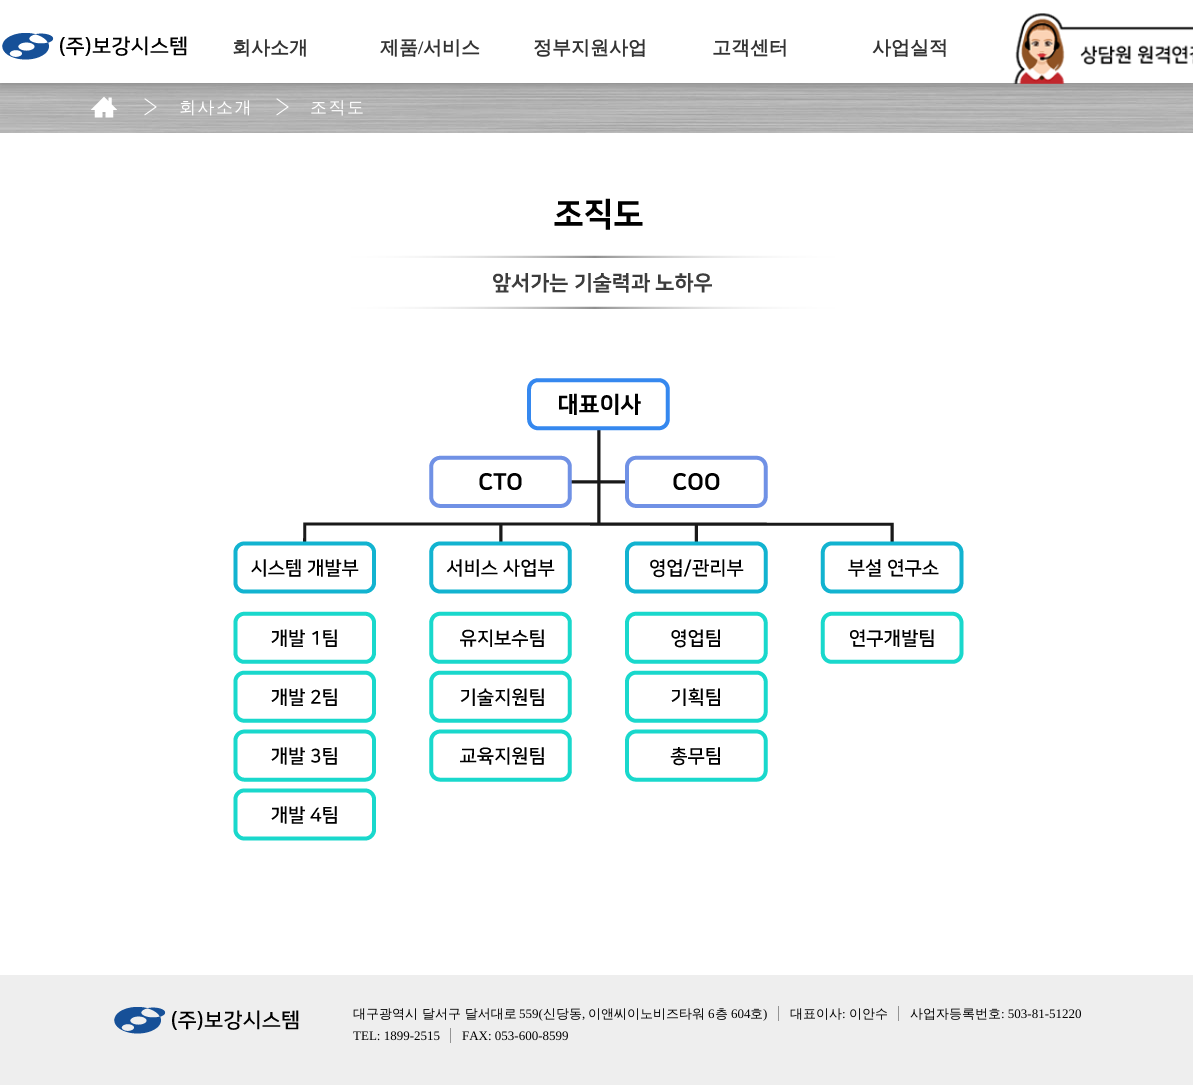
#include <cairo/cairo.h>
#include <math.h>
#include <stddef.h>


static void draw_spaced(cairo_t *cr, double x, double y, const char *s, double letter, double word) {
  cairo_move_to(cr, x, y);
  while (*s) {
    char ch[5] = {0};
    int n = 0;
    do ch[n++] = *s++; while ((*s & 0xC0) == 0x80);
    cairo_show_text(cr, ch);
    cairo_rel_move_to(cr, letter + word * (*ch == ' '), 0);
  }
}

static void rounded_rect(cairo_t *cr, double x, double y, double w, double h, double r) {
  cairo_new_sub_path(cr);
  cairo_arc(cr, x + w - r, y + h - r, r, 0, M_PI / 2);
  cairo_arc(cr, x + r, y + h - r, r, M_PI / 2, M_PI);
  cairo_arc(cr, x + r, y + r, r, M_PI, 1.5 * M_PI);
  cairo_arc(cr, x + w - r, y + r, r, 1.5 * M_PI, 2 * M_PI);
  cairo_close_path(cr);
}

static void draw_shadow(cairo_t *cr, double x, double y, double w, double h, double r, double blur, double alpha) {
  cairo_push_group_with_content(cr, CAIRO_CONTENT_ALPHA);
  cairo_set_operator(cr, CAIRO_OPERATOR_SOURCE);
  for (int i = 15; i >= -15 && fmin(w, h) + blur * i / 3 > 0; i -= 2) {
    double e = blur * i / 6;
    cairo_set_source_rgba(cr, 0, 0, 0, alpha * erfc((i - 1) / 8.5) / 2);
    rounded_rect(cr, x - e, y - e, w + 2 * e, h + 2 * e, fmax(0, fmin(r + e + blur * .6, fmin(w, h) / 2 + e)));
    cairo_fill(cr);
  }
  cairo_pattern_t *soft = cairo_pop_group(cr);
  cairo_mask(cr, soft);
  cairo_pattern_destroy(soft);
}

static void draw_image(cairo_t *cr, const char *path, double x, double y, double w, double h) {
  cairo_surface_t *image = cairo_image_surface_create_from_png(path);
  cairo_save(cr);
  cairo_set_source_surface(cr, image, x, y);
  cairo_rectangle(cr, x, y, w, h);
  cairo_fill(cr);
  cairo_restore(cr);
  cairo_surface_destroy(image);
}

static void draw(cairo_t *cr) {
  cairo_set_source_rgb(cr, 1, 1, 1);
  cairo_paint(cr);
  draw_image(cr, "images/3.png", 0, 83, 1193, 50);
  draw_image(cr, "images/4.png", 91, 96, 26, 22);
  draw_image(cr, "images/5.png", 144, 98, 13, 18);
  draw_image(cr, "images/6.png", 276, 98, 13, 18);
  cairo_save(cr);
  cairo_rectangle(cr, 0, 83, 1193, 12);
  cairo_clip(cr);
  cairo_set_source_rgb(cr, 134 / 255.0, 134 / 255.0, 134 / 255.0);
  draw_shadow(cr, 0, 2, 1193, 83, 0, 5, 1);
  cairo_restore(cr);
  draw_image(cr, "images/1.png", 2, 33, 185, 27);
  draw_image(cr, "images/2.png", 1013, 13, 180, 71);
  draw_image(cr, "images/7.png", 233, 198, 731, 643);
  cairo_set_source_rgb(cr, 238 / 255.0, 238 / 255.0, 238 / 255.0);
  cairo_rectangle(cr, 0, 975, 1193, 110);
  cairo_fill(cr);
  draw_image(cr, "images/8.png", 114, 1007, 185, 27);
  cairo_set_source_rgb(cr, 148 / 255.0, 148 / 255.0, 148 / 255.0);
  cairo_rectangle(cr, 778, 1006, 1, 15);
  cairo_fill(cr);
  cairo_rectangle(cr, 898, 1006, 1, 15);
  cairo_fill(cr);
  cairo_rectangle(cr, 450, 1028, 1, 15);
  cairo_fill(cr);
  cairo_select_font_face(cr, "WenQuanYi Zen Hei", CAIRO_FONT_SLANT_NORMAL, CAIRO_FONT_WEIGHT_BOLD);
  cairo_set_font_size(cr, 19);
  cairo_set_source_rgb(cr, 51 / 255.0, 51 / 255.0, 51 / 255.0);
  cairo_move_to(cr, 232, 54);
  cairo_show_text(cr, "회사소개");
  cairo_move_to(cr, 380, 54);
  cairo_show_text(cr, "제품");
  cairo_select_font_face(cr, "Liberation Serif", CAIRO_FONT_SLANT_NORMAL, CAIRO_FONT_WEIGHT_BOLD);
  cairo_move_to(cr, 418, 54);
  cairo_show_text(cr, "/");
  cairo_select_font_face(cr, "WenQuanYi Zen Hei", CAIRO_FONT_SLANT_NORMAL, CAIRO_FONT_WEIGHT_BOLD);
  cairo_move_to(cr, 423, 54);
  cairo_show_text(cr, "서비스");
  cairo_move_to(cr, 533, 54);
  cairo_show_text(cr, "정부지원사업");
  cairo_move_to(cr, 712, 54);
  cairo_show_text(cr, "고객센터");
  cairo_move_to(cr, 872, 54);
  cairo_show_text(cr, "사업실적");
  cairo_select_font_face(cr, "WenQuanYi Zen Hei Medium", CAIRO_FONT_SLANT_NORMAL, CAIRO_FONT_WEIGHT_NORMAL);
  cairo_set_font_size(cr, 17);
  cairo_set_source_rgb(cr, 1, 1, 1);
  draw_spaced(cr, 179, 113, "회사소개", 1.5, 0);
  draw_spaced(cr, 310, 113, "조직도", 1.5, 0);
  cairo_set_font_size(cr, 13);
  cairo_set_source_rgb(cr, 0, 0, 0);
  cairo_move_to(cr, 353, 1018);
  cairo_show_text(cr, "대구광역시 달서구 달서대로");
  cairo_select_font_face(cr, "Liberation Serif", CAIRO_FONT_SLANT_NORMAL, CAIRO_FONT_WEIGHT_NORMAL);
  cairo_move_to(cr, 519, 1018);
  cairo_show_text(cr, "559(");
  cairo_select_font_face(cr, "WenQuanYi Zen Hei Medium", CAIRO_FONT_SLANT_NORMAL, CAIRO_FONT_WEIGHT_NORMAL);
  cairo_move_to(cr, 543, 1018);
  cairo_show_text(cr, "신당동");
  cairo_select_font_face(cr, "Liberation Serif", CAIRO_FONT_SLANT_NORMAL, CAIRO_FONT_WEIGHT_NORMAL);
  cairo_move_to(cr, 582, 1018);
  cairo_show_text(cr, ",");
  cairo_select_font_face(cr, "WenQuanYi Zen Hei Medium", CAIRO_FONT_SLANT_NORMAL, CAIRO_FONT_WEIGHT_NORMAL);
  cairo_move_to(cr, 588, 1018);
  cairo_show_text(cr, "이앤씨이노비즈타워");
  cairo_select_font_face(cr, "Liberation Serif", CAIRO_FONT_SLANT_NORMAL, CAIRO_FONT_WEIGHT_NORMAL);
  cairo_move_to(cr, 708, 1018);
  cairo_show_text(cr, "6");
  cairo_select_font_face(cr, "WenQuanYi Zen Hei Medium", CAIRO_FONT_SLANT_NORMAL, CAIRO_FONT_WEIGHT_NORMAL);
  cairo_move_to(cr, 715, 1018);
  cairo_show_text(cr, "층");
  cairo_select_font_face(cr, "Liberation Serif", CAIRO_FONT_SLANT_NORMAL, CAIRO_FONT_WEIGHT_NORMAL);
  cairo_move_to(cr, 731, 1018);
  cairo_show_text(cr, "604");
  cairo_select_font_face(cr, "WenQuanYi Zen Hei Medium", CAIRO_FONT_SLANT_NORMAL, CAIRO_FONT_WEIGHT_NORMAL);
  cairo_move_to(cr, 750, 1018);
  cairo_show_text(cr, "호");
  cairo_select_font_face(cr, "Liberation Serif", CAIRO_FONT_SLANT_NORMAL, CAIRO_FONT_WEIGHT_NORMAL);
  cairo_move_to(cr, 763, 1018);
  cairo_show_text(cr, ")");
  cairo_select_font_face(cr, "WenQuanYi Zen Hei Medium", CAIRO_FONT_SLANT_NORMAL, CAIRO_FONT_WEIGHT_NORMAL);
  cairo_move_to(cr, 790, 1018);
  cairo_show_text(cr, "대표이사");
  cairo_select_font_face(cr, "Liberation Serif", CAIRO_FONT_SLANT_NORMAL, CAIRO_FONT_WEIGHT_NORMAL);
  cairo_move_to(cr, 842, 1018);
  cairo_show_text(cr, ":");
  cairo_select_font_face(cr, "WenQuanYi Zen Hei Medium", CAIRO_FONT_SLANT_NORMAL, CAIRO_FONT_WEIGHT_NORMAL);
  cairo_move_to(cr, 849, 1018);
  cairo_show_text(cr, "이안수");
  cairo_move_to(cr, 910, 1018);
  cairo_show_text(cr, "사업자등록번호");
  cairo_select_font_face(cr, "Liberation Serif", CAIRO_FONT_SLANT_NORMAL, CAIRO_FONT_WEIGHT_NORMAL);
  cairo_move_to(cr, 1001, 1018);
  cairo_show_text(cr, ": 503-81-51220");
  cairo_move_to(cr, 353, 1040);
  cairo_show_text(cr, "TEL: 1899-2515");
  cairo_move_to(cr, 462, 1040);
  cairo_show_text(cr, "FAX: 053-600-8599");
}

int main(void) {
  cairo_surface_t *surface = cairo_image_surface_create(CAIRO_FORMAT_RGB24, 1193, 1092);
  cairo_t *cr = cairo_create(surface);
  cairo_font_options_t *options = cairo_font_options_create();
  cairo_font_options_set_hint_metrics(options, CAIRO_HINT_METRICS_OFF);
  cairo_font_options_set_hint_style(options, CAIRO_HINT_STYLE_NONE);
  cairo_set_font_options(cr, options);
  cairo_set_miter_limit(cr, 4);
  draw(cr);
  cairo_surface_write_to_png(surface, "out.png");
  cairo_font_options_destroy(options);
  cairo_destroy(cr);
  cairo_surface_destroy(surface);
  return 0;
}
